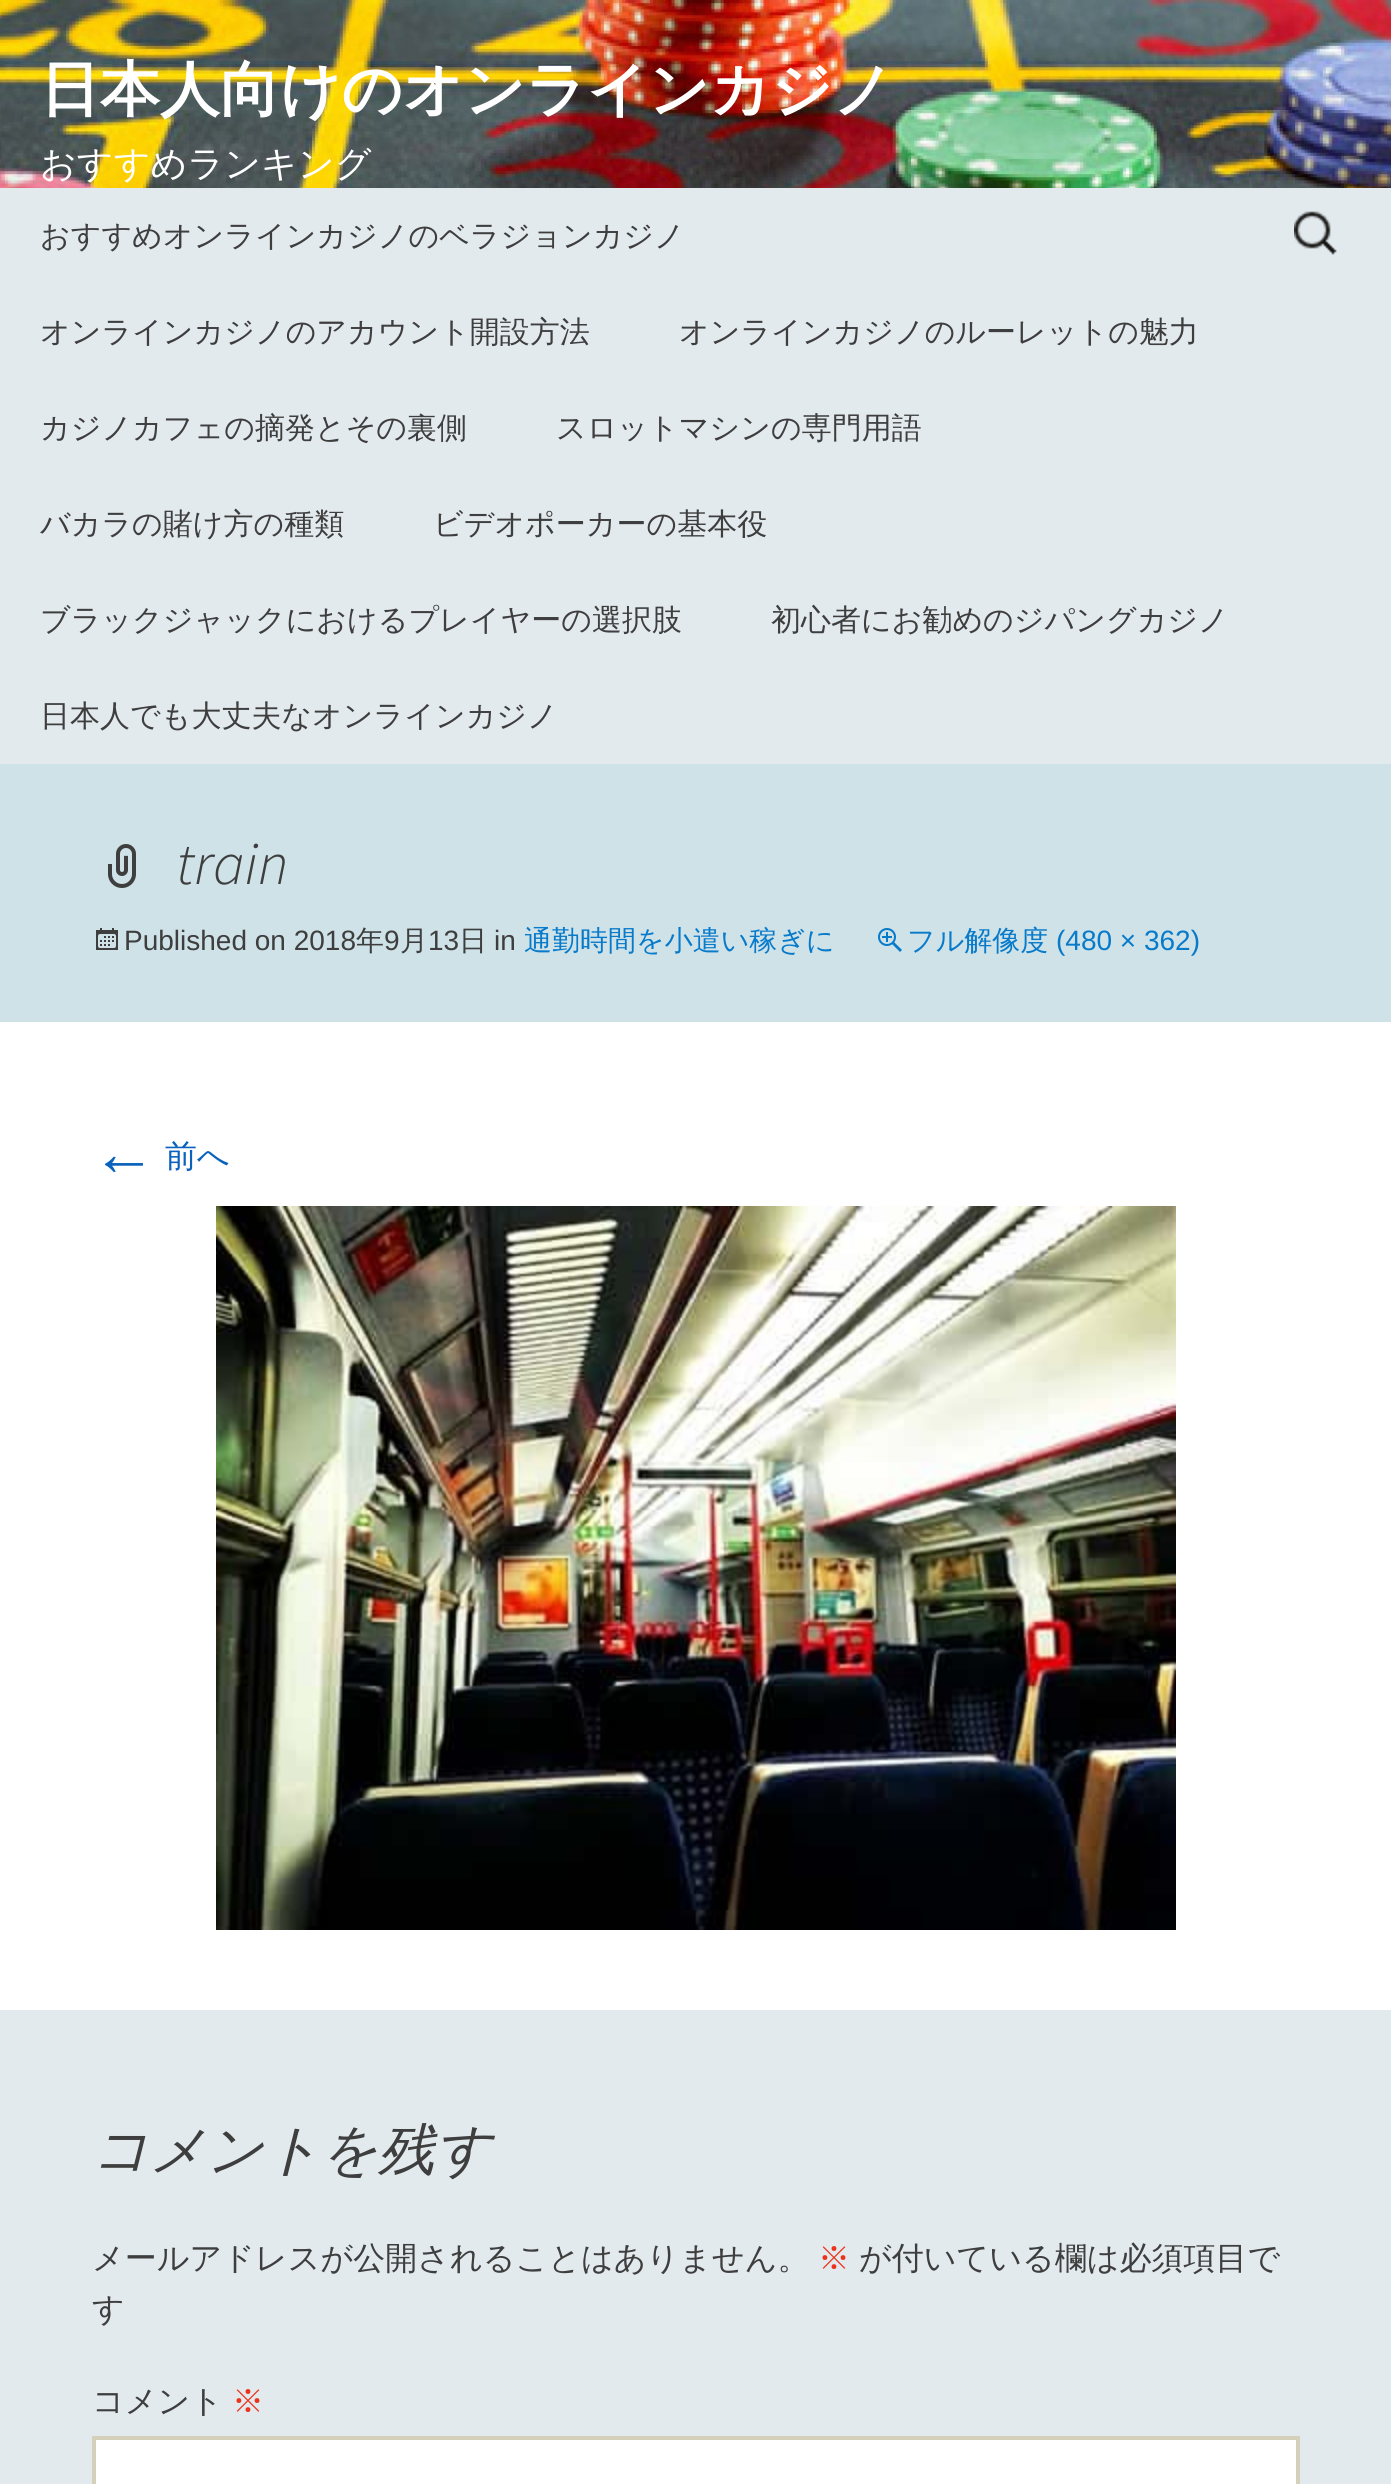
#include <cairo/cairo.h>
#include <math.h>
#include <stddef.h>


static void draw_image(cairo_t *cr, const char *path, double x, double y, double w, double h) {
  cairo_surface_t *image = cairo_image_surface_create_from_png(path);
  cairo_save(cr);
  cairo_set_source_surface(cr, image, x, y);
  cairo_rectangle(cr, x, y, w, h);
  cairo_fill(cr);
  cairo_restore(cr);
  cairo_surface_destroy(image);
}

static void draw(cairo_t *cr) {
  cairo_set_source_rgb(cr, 1, 1, 1);
  cairo_paint(cr);
  draw_image(cr, "images/1.png", 0, 0, 1391, 188);
  cairo_set_source_rgb(cr, 227 / 255.0, 234 / 255.0, 238 / 255.0);
  cairo_rectangle(cr, 0, 188, 1391, 576);
  cairo_fill(cr);
  draw_image(cr, "images/2.png", 1294, 211, 43, 44);
  cairo_set_source_rgb(cr, 206 / 255.0, 226 / 255.0, 232 / 255.0);
  cairo_rectangle(cr, 0, 764, 1391, 258);
  cairo_fill(cr);
  draw_image(cr, "images/3.png", 108, 844, 28, 44);
  draw_image(cr, "images/4.png", 96, 928, 22, 22);
  draw_image(cr, "images/5.png", 878, 928, 24, 24);
  draw_image(cr, "images/6.png", 216, 1206, 960, 724);
  cairo_set_source_rgb(cr, 227 / 255.0, 234 / 255.0, 238 / 255.0);
  cairo_rectangle(cr, 0, 2010, 1391, 474);
  cairo_fill(cr);
  cairo_set_source_rgb(cr, 1, 1, 1);
  cairo_rectangle(cr, 94, 2438, 1204, 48);
  cairo_fill_preserve(cr);
  cairo_set_source_rgb(cr, 212 / 255.0, 208 / 255.0, 186 / 255.0);
  cairo_set_line_width(cr, 4);
  cairo_stroke(cr);
  cairo_select_font_face(cr, "WenQuanYi Zen Hei", CAIRO_FONT_SLANT_NORMAL, CAIRO_FONT_WEIGHT_BOLD);
  cairo_set_font_size(cr, 60);
  cairo_set_source_rgb(cr, 1, 1, 1);
  cairo_move_to(cr, 40, 110);
  cairo_show_text(cr, "日本人向けのオンラインカジノ");
  cairo_select_font_face(cr, "WenQuanYi Zen Hei Medium", CAIRO_FONT_SLANT_NORMAL, CAIRO_FONT_WEIGHT_NORMAL);
  cairo_set_font_size(cr, 36);
  cairo_move_to(cr, 40, 176);
  cairo_show_text(cr, "おすすめランキング");
  cairo_set_font_size(cr, 30);
  cairo_set_source_rgb(cr, 62 / 255.0, 62 / 255.0, 62 / 255.0);
  cairo_move_to(cr, 40, 246);
  cairo_show_text(cr, "おすすめオンラインカジノのベラジョンカジノ");
  cairo_move_to(cr, 40, 342);
  cairo_show_text(cr, "オンラインカジノのアカウント開設方法");
  cairo_move_to(cr, 679, 342);
  cairo_show_text(cr, "オンラインカジノのルーレットの魅力");
  cairo_move_to(cr, 40, 438);
  cairo_show_text(cr, "カジノカフェの摘発とその裏側");
  cairo_move_to(cr, 556, 438);
  cairo_show_text(cr, "スロットマシンの専門用語");
  cairo_move_to(cr, 40, 534);
  cairo_show_text(cr, "バカラの賭け方の種類");
  cairo_move_to(cr, 433, 534);
  cairo_show_text(cr, "ビデオポーカーの基本役");
  cairo_move_to(cr, 40, 630);
  cairo_show_text(cr, "ブラックジャックにおけるプレイヤーの選択肢");
  cairo_move_to(cr, 771, 630);
  cairo_show_text(cr, "初心者にお勧めのジパングカジノ");
  cairo_move_to(cr, 40, 726);
  cairo_show_text(cr, "日本人でも大丈夫なオンラインカジノ");
  cairo_select_font_face(cr, "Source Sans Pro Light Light", CAIRO_FONT_SLANT_ITALIC, CAIRO_FONT_WEIGHT_NORMAL);
  cairo_set_font_size(cr, 60);
  cairo_move_to(cr, 176, 884);
  cairo_show_text(cr, "train");
  cairo_select_font_face(cr, "Liberation Sans", CAIRO_FONT_SLANT_NORMAL, CAIRO_FONT_WEIGHT_NORMAL);
  cairo_set_font_size(cr, 28);
  cairo_move_to(cr, 124, 950);
  cairo_show_text(cr, "Published on 2018");
  cairo_select_font_face(cr, "WenQuanYi Zen Hei Medium", CAIRO_FONT_SLANT_NORMAL, CAIRO_FONT_WEIGHT_NORMAL);
  cairo_move_to(cr, 356, 950);
  cairo_show_text(cr, "年");
  cairo_select_font_face(cr, "Liberation Sans", CAIRO_FONT_SLANT_NORMAL, CAIRO_FONT_WEIGHT_NORMAL);
  cairo_move_to(cr, 384, 950);
  cairo_show_text(cr, "9");
  cairo_select_font_face(cr, "WenQuanYi Zen Hei Medium", CAIRO_FONT_SLANT_NORMAL, CAIRO_FONT_WEIGHT_NORMAL);
  cairo_move_to(cr, 400, 950);
  cairo_show_text(cr, "月");
  cairo_select_font_face(cr, "Liberation Sans", CAIRO_FONT_SLANT_NORMAL, CAIRO_FONT_WEIGHT_NORMAL);
  cairo_move_to(cr, 428, 950);
  cairo_show_text(cr, "13");
  cairo_select_font_face(cr, "WenQuanYi Zen Hei Medium", CAIRO_FONT_SLANT_NORMAL, CAIRO_FONT_WEIGHT_NORMAL);
  cairo_move_to(cr, 459, 950);
  cairo_show_text(cr, "日");
  cairo_select_font_face(cr, "Liberation Sans", CAIRO_FONT_SLANT_NORMAL, CAIRO_FONT_WEIGHT_NORMAL);
  cairo_move_to(cr, 494, 950);
  cairo_show_text(cr, "in");
  cairo_select_font_face(cr, "WenQuanYi Zen Hei Medium", CAIRO_FONT_SLANT_NORMAL, CAIRO_FONT_WEIGHT_NORMAL);
  cairo_set_source_rgb(cr, 8 / 255.0, 122 / 255.0, 202 / 255.0);
  cairo_move_to(cr, 524, 950);
  cairo_show_text(cr, "通勤時間を小遣い稼ぎに");
  cairo_move_to(cr, 907, 950);
  cairo_show_text(cr, "フル解像度");
  cairo_select_font_face(cr, "Liberation Sans", CAIRO_FONT_SLANT_NORMAL, CAIRO_FONT_WEIGHT_NORMAL);
  cairo_move_to(cr, 1056, 950);
  cairo_show_text(cr, "(480 × 362)");
  cairo_set_font_size(cr, 64);
  cairo_set_source_rgb(cr, 10 / 255.0, 98 / 255.0, 188 / 255.0);
  cairo_move_to(cr, 92, 1175);
  cairo_show_text(cr, "←");
  cairo_select_font_face(cr, "WenQuanYi Zen Hei Medium", CAIRO_FONT_SLANT_NORMAL, CAIRO_FONT_WEIGHT_NORMAL);
  cairo_set_font_size(cr, 32);
  cairo_move_to(cr, 165, 1167);
  cairo_show_text(cr, "前へ");
  cairo_select_font_face(cr, "WenQuanYi Zen Hei Medium", CAIRO_FONT_SLANT_ITALIC, CAIRO_FONT_WEIGHT_NORMAL);
  cairo_set_font_size(cr, 56);
  cairo_set_source_rgb(cr, 62 / 255.0, 62 / 255.0, 62 / 255.0);
  cairo_move_to(cr, 92, 2169);
  cairo_show_text(cr, "コメントを残す");
  cairo_select_font_face(cr, "WenQuanYi Zen Hei Medium", CAIRO_FONT_SLANT_NORMAL, CAIRO_FONT_WEIGHT_NORMAL);
  cairo_set_font_size(cr, 32);
  cairo_move_to(cr, 92, 2269);
  cairo_show_text(cr, "メールアドレスが公開されることはありません。");
  cairo_set_source_rgb(cr, 237 / 255.0, 51 / 255.0, 28 / 255.0);
  cairo_move_to(cr, 818, 2269);
  cairo_show_text(cr, "※");
  cairo_set_source_rgb(cr, 62 / 255.0, 62 / 255.0, 62 / 255.0);
  cairo_move_to(cr, 859, 2269);
  cairo_show_text(cr, "が付いている欄は必須項目で");
  cairo_move_to(cr, 92, 2320);
  cairo_show_text(cr, "す");
  cairo_move_to(cr, 92, 2412);
  cairo_show_text(cr, "コメント");
  cairo_set_source_rgb(cr, 237 / 255.0, 51 / 255.0, 28 / 255.0);
  cairo_move_to(cr, 232, 2412);
  cairo_show_text(cr, "※");
}

int main(void) {
  cairo_surface_t *surface = cairo_image_surface_create(CAIRO_FORMAT_RGB24, 1391, 2484);
  cairo_t *cr = cairo_create(surface);
  cairo_font_options_t *options = cairo_font_options_create();
  cairo_font_options_set_hint_metrics(options, CAIRO_HINT_METRICS_OFF);
  cairo_font_options_set_hint_style(options, CAIRO_HINT_STYLE_NONE);
  cairo_set_font_options(cr, options);
  cairo_set_miter_limit(cr, 4);
  draw(cr);
  cairo_surface_write_to_png(surface, "out.png");
  cairo_font_options_destroy(options);
  cairo_destroy(cr);
  cairo_surface_destroy(surface);
  return 0;
}
